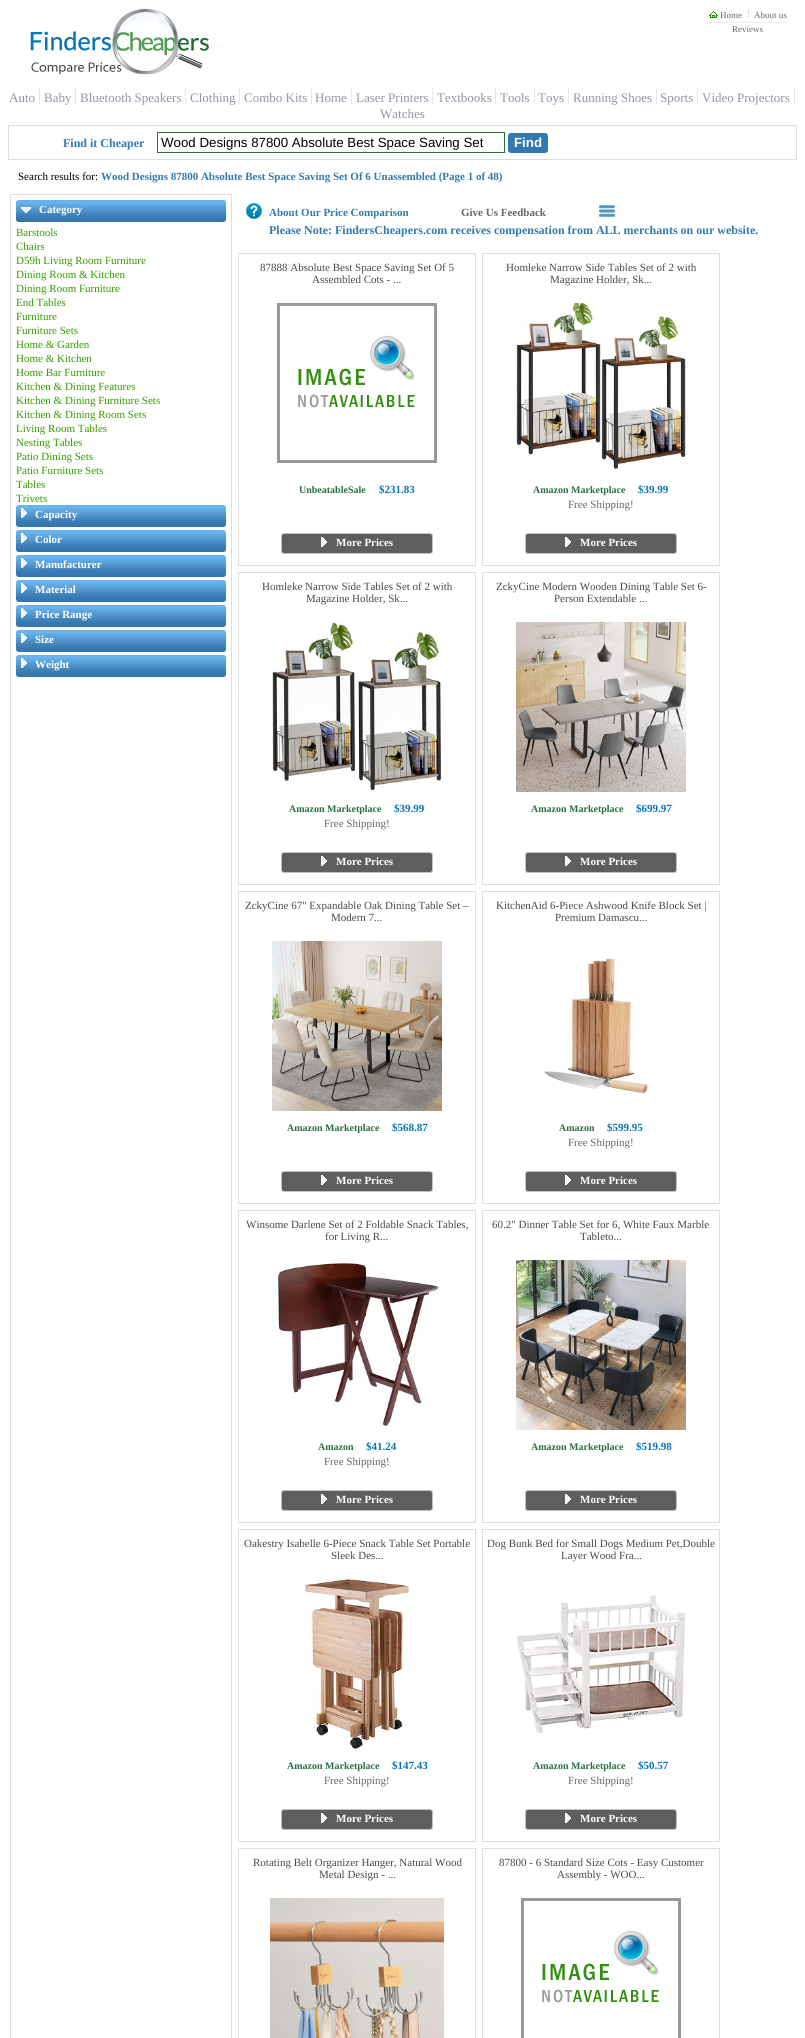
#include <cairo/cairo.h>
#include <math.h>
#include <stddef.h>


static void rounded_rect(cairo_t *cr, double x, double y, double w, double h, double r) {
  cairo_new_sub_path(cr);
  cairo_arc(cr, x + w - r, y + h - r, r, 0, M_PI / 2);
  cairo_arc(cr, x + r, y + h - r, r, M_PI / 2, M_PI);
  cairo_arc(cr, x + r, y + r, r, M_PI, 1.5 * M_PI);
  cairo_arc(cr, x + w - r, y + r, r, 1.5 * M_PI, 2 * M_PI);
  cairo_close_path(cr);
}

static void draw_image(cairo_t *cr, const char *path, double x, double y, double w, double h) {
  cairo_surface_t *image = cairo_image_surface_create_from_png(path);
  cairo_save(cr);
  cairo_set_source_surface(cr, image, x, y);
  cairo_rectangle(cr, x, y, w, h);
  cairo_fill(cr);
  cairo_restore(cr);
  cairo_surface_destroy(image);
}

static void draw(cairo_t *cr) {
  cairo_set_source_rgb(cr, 1, 1, 1);
  cairo_paint(cr);
  draw_image(cr, "images/1.png", 30, 8, 179, 66);
  draw_image(cr, "images/2.png", 709, 11, 9, 7);
  draw_image(cr, "images/3.png", 748, 10, 1, 7);
  cairo_set_source_rgb(cr, 235 / 255.0, 235 / 255.0, 235 / 255.0);
  cairo_rectangle(cr, 709, 22, 78, 1);
  cairo_fill(cr);
  cairo_set_source_rgb(cr, 230 / 255.0, 231 / 255.0, 235 / 255.0);
  cairo_rectangle(cr, 39, 88, 1, 17);
  cairo_fill(cr);
  cairo_rectangle(cr, 75, 88, 1, 17);
  cairo_fill(cr);
  cairo_rectangle(cr, 185, 88, 1, 17);
  cairo_fill(cr);
  cairo_rectangle(cr, 239, 88, 1, 17);
  cairo_fill(cr);
  cairo_rectangle(cr, 311, 88, 1, 17);
  cairo_fill(cr);
  cairo_rectangle(cr, 351, 88, 1, 17);
  cairo_fill(cr);
  cairo_rectangle(cr, 432, 88, 1, 17);
  cairo_fill(cr);
  cairo_rectangle(cr, 495, 88, 1, 17);
  cairo_fill(cr);
  cairo_rectangle(cr, 534, 88, 1, 17);
  cairo_fill(cr);
  cairo_rectangle(cr, 568, 88, 1, 17);
  cairo_fill(cr);
  cairo_rectangle(cr, 656, 88, 1, 17);
  cairo_fill(cr);
  cairo_rectangle(cr, 697, 88, 1, 17);
  cairo_fill(cr);
  cairo_rectangle(cr, 794, 88, 1, 17);
  cairo_fill(cr);
  cairo_rectangle(cr, 8.5, 125.5, 788, 34);
  cairo_set_source_rgb(cr, 222 / 255.0, 222 / 255.0, 222 / 255.0);
  cairo_set_line_width(cr, 1);
  cairo_stroke(cr);
  cairo_rectangle(cr, 157.5, 132.5, 347, 20);
  cairo_set_source_rgb(cr, 42 / 255.0, 111 / 255.0, 60 / 255.0);
  cairo_stroke(cr);
  cairo_set_source_rgb(cr, 51 / 255.0, 121 / 255.0, 177 / 255.0);
  rounded_rect(cr, 508, 133, 40, 20, 3);
  cairo_fill(cr);
  cairo_rectangle(cr, 10.5, 194.5, 221, 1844);
  cairo_set_source_rgb(cr, 222 / 255.0, 222 / 255.0, 222 / 255.0);
  cairo_stroke(cr);
  draw_image(cr, "images/4.png", 16, 200, 210, 22);
  draw_image(cr, "images/5.png", 21, 207, 10, 6);
  draw_image(cr, "images/4.png", 16, 505, 210, 22);
  draw_image(cr, "images/6.png", 21, 508, 6, 10);
  draw_image(cr, "images/4.png", 16, 530, 210, 22);
  draw_image(cr, "images/6.png", 21, 533, 6, 10);
  draw_image(cr, "images/4.png", 16, 555, 210, 22);
  draw_image(cr, "images/6.png", 21, 558, 6, 10);
  draw_image(cr, "images/4.png", 16, 580, 210, 22);
  draw_image(cr, "images/6.png", 21, 583, 6, 10);
  draw_image(cr, "images/4.png", 16, 605, 210, 22);
  draw_image(cr, "images/6.png", 21, 608, 6, 10);
  draw_image(cr, "images/4.png", 16, 630, 210, 22);
  draw_image(cr, "images/6.png", 21, 633, 6, 10);
  draw_image(cr, "images/4.png", 16, 655, 210, 22);
  draw_image(cr, "images/6.png", 21, 658, 6, 10);
  draw_image(cr, "images/7.png", 246, 203, 16, 16);
  draw_image(cr, "images/8.png", 599, 205, 16, 12);
  cairo_rectangle(cr, 238.5, 253.5, 237, 312);
  cairo_stroke(cr);
  draw_image(cr, "images/9.png", 277, 303, 160, 160);
  cairo_set_source_rgb(cr, 95 / 255.0, 93 / 255.0, 93 / 255.0);
  rounded_rect(cr, 281.5, 533.5, 151, 20, 2.5);
  cairo_fill_preserve(cr);
  cairo_set_source_rgb(cr, 195 / 255.0, 195 / 255.0, 195 / 255.0);
  cairo_stroke(cr);
  draw_image(cr, "images/10.png", 321, 537, 6, 10);
  cairo_rectangle(cr, 482.5, 253.5, 237, 312);
  cairo_set_source_rgb(cr, 222 / 255.0, 222 / 255.0, 222 / 255.0);
  cairo_stroke(cr);
  draw_image(cr, "images/11.png", 516, 303, 170, 166);
  cairo_set_source_rgb(cr, 95 / 255.0, 93 / 255.0, 93 / 255.0);
  rounded_rect(cr, 525.5, 533.5, 151, 20, 2.5);
  cairo_fill_preserve(cr);
  cairo_set_source_rgb(cr, 195 / 255.0, 195 / 255.0, 195 / 255.0);
  cairo_stroke(cr);
  draw_image(cr, "images/10.png", 565, 537, 6, 10);
  cairo_rectangle(cr, 238.5, 572.5, 237, 312);
  cairo_set_source_rgb(cr, 222 / 255.0, 222 / 255.0, 222 / 255.0);
  cairo_stroke(cr);
  draw_image(cr, "images/12.png", 272, 622, 170, 168);
  cairo_set_source_rgb(cr, 95 / 255.0, 93 / 255.0, 93 / 255.0);
  rounded_rect(cr, 281.5, 852.5, 151, 20, 2.5);
  cairo_fill_preserve(cr);
  cairo_set_source_rgb(cr, 195 / 255.0, 195 / 255.0, 195 / 255.0);
  cairo_stroke(cr);
  draw_image(cr, "images/10.png", 321, 856, 6, 10);
  cairo_rectangle(cr, 482.5, 572.5, 237, 312);
  cairo_set_source_rgb(cr, 222 / 255.0, 222 / 255.0, 222 / 255.0);
  cairo_stroke(cr);
  draw_image(cr, "images/13.png", 516, 622, 170, 170);
  cairo_set_source_rgb(cr, 95 / 255.0, 93 / 255.0, 93 / 255.0);
  rounded_rect(cr, 525.5, 852.5, 151, 20, 2.5);
  cairo_fill_preserve(cr);
  cairo_set_source_rgb(cr, 195 / 255.0, 195 / 255.0, 195 / 255.0);
  cairo_stroke(cr);
  draw_image(cr, "images/10.png", 565, 856, 6, 10);
  cairo_rectangle(cr, 238.5, 891.5, 237, 312);
  cairo_set_source_rgb(cr, 222 / 255.0, 222 / 255.0, 222 / 255.0);
  cairo_stroke(cr);
  draw_image(cr, "images/14.png", 272, 941, 170, 170);
  cairo_set_source_rgb(cr, 95 / 255.0, 93 / 255.0, 93 / 255.0);
  rounded_rect(cr, 281.5, 1171.5, 151, 20, 2.5);
  cairo_fill_preserve(cr);
  cairo_set_source_rgb(cr, 195 / 255.0, 195 / 255.0, 195 / 255.0);
  cairo_stroke(cr);
  draw_image(cr, "images/10.png", 321, 1175, 6, 10);
  cairo_rectangle(cr, 482.5, 891.5, 237, 312);
  cairo_set_source_rgb(cr, 222 / 255.0, 222 / 255.0, 222 / 255.0);
  cairo_stroke(cr);
  draw_image(cr, "images/15.png", 544, 957, 105, 137);
  cairo_set_source_rgb(cr, 95 / 255.0, 93 / 255.0, 93 / 255.0);
  rounded_rect(cr, 525.5, 1171.5, 151, 20, 2.5);
  cairo_fill_preserve(cr);
  cairo_set_source_rgb(cr, 195 / 255.0, 195 / 255.0, 195 / 255.0);
  cairo_stroke(cr);
  draw_image(cr, "images/10.png", 565, 1175, 6, 10);
  cairo_rectangle(cr, 238.5, 1210.5, 237, 312);
  cairo_set_source_rgb(cr, 222 / 255.0, 222 / 255.0, 222 / 255.0);
  cairo_stroke(cr);
  draw_image(cr, "images/16.png", 278, 1262, 161, 164);
  cairo_set_source_rgb(cr, 95 / 255.0, 93 / 255.0, 93 / 255.0);
  rounded_rect(cr, 281.5, 1490.5, 151, 20, 2.5);
  cairo_fill_preserve(cr);
  cairo_set_source_rgb(cr, 195 / 255.0, 195 / 255.0, 195 / 255.0);
  cairo_stroke(cr);
  draw_image(cr, "images/10.png", 321, 1494, 6, 10);
  cairo_rectangle(cr, 482.5, 1210.5, 237, 312);
  cairo_set_source_rgb(cr, 222 / 255.0, 222 / 255.0, 222 / 255.0);
  cairo_stroke(cr);
  draw_image(cr, "images/17.png", 516, 1260, 170, 170);
  cairo_set_source_rgb(cr, 95 / 255.0, 93 / 255.0, 93 / 255.0);
  rounded_rect(cr, 525.5, 1490.5, 151, 20, 2.5);
  cairo_fill_preserve(cr);
  cairo_set_source_rgb(cr, 195 / 255.0, 195 / 255.0, 195 / 255.0);
  cairo_stroke(cr);
  draw_image(cr, "images/10.png", 565, 1494, 6, 10);
  cairo_rectangle(cr, 238.5, 1529.5, 237, 312);
  cairo_set_source_rgb(cr, 222 / 255.0, 222 / 255.0, 222 / 255.0);
  cairo_stroke(cr);
  draw_image(cr, "images/18.png", 305, 1579, 104, 170);
  cairo_set_source_rgb(cr, 95 / 255.0, 93 / 255.0, 93 / 255.0);
  rounded_rect(cr, 281.5, 1809.5, 151, 20, 2.5);
  cairo_fill_preserve(cr);
  cairo_set_source_rgb(cr, 195 / 255.0, 195 / 255.0, 195 / 255.0);
  cairo_stroke(cr);
  draw_image(cr, "images/10.png", 321, 1813, 6, 10);
  cairo_rectangle(cr, 482.5, 1529.5, 237, 312);
  cairo_set_source_rgb(cr, 222 / 255.0, 222 / 255.0, 222 / 255.0);
  cairo_stroke(cr);
  draw_image(cr, "images/19.png", 516, 1595, 169, 138);
  cairo_set_source_rgb(cr, 95 / 255.0, 93 / 255.0, 93 / 255.0);
  rounded_rect(cr, 525.5, 1809.5, 151, 20, 2.5);
  cairo_fill_preserve(cr);
  cairo_set_source_rgb(cr, 195 / 255.0, 195 / 255.0, 195 / 255.0);
  cairo_stroke(cr);
  draw_image(cr, "images/10.png", 565, 1813, 6, 10);
  cairo_rectangle(cr, 238.5, 1848.5, 237, 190);
  cairo_set_source_rgb(cr, 222 / 255.0, 222 / 255.0, 222 / 255.0);
  cairo_stroke(cr);
  draw_image(cr, "images/20.png", 270, 1898, 174, 140);
  cairo_rectangle(cr, 482.5, 1848.5, 237, 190);
  cairo_stroke(cr);
  draw_image(cr, "images/21.png", 521, 1898, 160, 140);
  cairo_select_font_face(cr, "Liberation Serif", CAIRO_FONT_SLANT_NORMAL, CAIRO_FONT_WEIGHT_NORMAL);
  cairo_set_font_size(cr, 9);
  cairo_set_source_rgb(cr, 102 / 255.0, 102 / 255.0, 102 / 255.0);
  cairo_move_to(cr, 720, 18);
  cairo_show_text(cr, "Home");
  cairo_move_to(cr, 754, 18);
  cairo_show_text(cr, "About us");
  cairo_move_to(cr, 732, 32);
  cairo_show_text(cr, "Reviews");
  cairo_set_font_size(cr, 13);
  cairo_set_source_rgb(cr, 145 / 255.0, 149 / 255.0, 165 / 255.0);
  cairo_move_to(cr, 9, 102);
  cairo_show_text(cr, "Auto");
  cairo_move_to(cr, 44, 102);
  cairo_show_text(cr, "Baby");
  cairo_move_to(cr, 80, 102);
  cairo_show_text(cr, "Bluetooth Speakers");
  cairo_move_to(cr, 190, 102);
  cairo_show_text(cr, "Clothing");
  cairo_move_to(cr, 244, 102);
  cairo_show_text(cr, "Combo Kits");
  cairo_move_to(cr, 315, 102);
  cairo_show_text(cr, "Home");
  cairo_move_to(cr, 356, 102);
  cairo_show_text(cr, "Laser Printers");
  cairo_move_to(cr, 437, 102);
  cairo_show_text(cr, "Textbooks");
  cairo_move_to(cr, 500, 102);
  cairo_show_text(cr, "Tools");
  cairo_move_to(cr, 538, 102);
  cairo_show_text(cr, "Toys");
  cairo_move_to(cr, 573, 102);
  cairo_show_text(cr, "Running Shoes");
  cairo_move_to(cr, 660, 102);
  cairo_show_text(cr, "Sports");
  cairo_move_to(cr, 702, 102);
  cairo_show_text(cr, "Video Projectors");
  cairo_move_to(cr, 380, 118);
  cairo_show_text(cr, "Watches");
  cairo_select_font_face(cr, "Liberation Serif", CAIRO_FONT_SLANT_NORMAL, CAIRO_FONT_WEIGHT_BOLD);
  cairo_set_font_size(cr, 12);
  cairo_set_source_rgb(cr, 51 / 255.0, 121 / 255.0, 177 / 255.0);
  cairo_move_to(cr, 63, 147);
  cairo_show_text(cr, "Find it Cheaper");
  cairo_select_font_face(cr, "Liberation Sans", CAIRO_FONT_SLANT_NORMAL, CAIRO_FONT_WEIGHT_NORMAL);
  cairo_set_font_size(cr, 13.3);
  cairo_set_source_rgb(cr, 0, 0, 0);
  cairo_move_to(cr, 161, 147);
  cairo_show_text(cr, "Wood Designs 87800 Absolute Best Space Saving Set");
  cairo_select_font_face(cr, "Liberation Sans", CAIRO_FONT_SLANT_NORMAL, CAIRO_FONT_WEIGHT_BOLD);
  cairo_set_source_rgb(cr, 1, 1, 1);
  cairo_move_to(cr, 514, 147);
  cairo_show_text(cr, "Find");
  cairo_select_font_face(cr, "Liberation Serif", CAIRO_FONT_SLANT_NORMAL, CAIRO_FONT_WEIGHT_NORMAL);
  cairo_set_font_size(cr, 11);
  cairo_set_source_rgb(cr, 0, 0, 0);
  cairo_move_to(cr, 18, 180);
  cairo_show_text(cr, "Search results for:");
  cairo_select_font_face(cr, "Liberation Serif", CAIRO_FONT_SLANT_NORMAL, CAIRO_FONT_WEIGHT_BOLD);
  cairo_set_source_rgb(cr, 51 / 255.0, 121 / 255.0, 177 / 255.0);
  cairo_move_to(cr, 101, 180);
  cairo_show_text(cr, "Wood Designs 87800 Absolute Best Space Saving Set Of 6 Unassembled (Page 1 of 48)");
  cairo_set_source_rgb(cr, 1, 1, 1);
  cairo_move_to(cr, 39, 213);
  cairo_show_text(cr, "Category");
  cairo_select_font_face(cr, "Liberation Serif", CAIRO_FONT_SLANT_NORMAL, CAIRO_FONT_WEIGHT_NORMAL);
  cairo_set_source_rgb(cr, 51 / 255.0, 153 / 255.0, 0);
  cairo_move_to(cr, 16, 236);
  cairo_show_text(cr, "Barstools");
  cairo_move_to(cr, 16, 250);
  cairo_show_text(cr, "Chairs");
  cairo_move_to(cr, 16, 264);
  cairo_show_text(cr, "D59h Living Room Furniture");
  cairo_move_to(cr, 16, 278);
  cairo_show_text(cr, "Dining Room & Kitchen");
  cairo_move_to(cr, 16, 292);
  cairo_show_text(cr, "Dining Room Furniture");
  cairo_move_to(cr, 16, 306);
  cairo_show_text(cr, "End Tables");
  cairo_move_to(cr, 16, 320);
  cairo_show_text(cr, "Furniture");
  cairo_move_to(cr, 16, 334);
  cairo_show_text(cr, "Furniture Sets");
  cairo_move_to(cr, 16, 348);
  cairo_show_text(cr, "Home & Garden");
  cairo_move_to(cr, 16, 362);
  cairo_show_text(cr, "Home & Kitchen");
  cairo_move_to(cr, 16, 376);
  cairo_show_text(cr, "Home Bar Furniture");
  cairo_move_to(cr, 16, 390);
  cairo_show_text(cr, "Kitchen & Dining Features");
  cairo_move_to(cr, 16, 404);
  cairo_show_text(cr, "Kitchen & Dining Furniture Sets");
  cairo_move_to(cr, 16, 418);
  cairo_show_text(cr, "Kitchen & Dining Room Sets");
  cairo_move_to(cr, 16, 432);
  cairo_show_text(cr, "Living Room Tables");
  cairo_move_to(cr, 16, 446);
  cairo_show_text(cr, "Nesting Tables");
  cairo_move_to(cr, 16, 460);
  cairo_show_text(cr, "Patio Dining Sets");
  cairo_move_to(cr, 16, 474);
  cairo_show_text(cr, "Patio Furniture Sets");
  cairo_move_to(cr, 16, 488);
  cairo_show_text(cr, "Tables");
  cairo_move_to(cr, 16, 502);
  cairo_show_text(cr, "Trivets");
  cairo_select_font_face(cr, "Liberation Serif", CAIRO_FONT_SLANT_NORMAL, CAIRO_FONT_WEIGHT_BOLD);
  cairo_set_source_rgb(cr, 1, 1, 1);
  cairo_move_to(cr, 35, 518);
  cairo_show_text(cr, "Capacity");
  cairo_move_to(cr, 35, 543);
  cairo_show_text(cr, "Color");
  cairo_move_to(cr, 35, 568);
  cairo_show_text(cr, "Manufacturer");
  cairo_move_to(cr, 35, 593);
  cairo_show_text(cr, "Material");
  cairo_move_to(cr, 35, 618);
  cairo_show_text(cr, "Price Range");
  cairo_move_to(cr, 35, 643);
  cairo_show_text(cr, "Size");
  cairo_move_to(cr, 35, 668);
  cairo_show_text(cr, "Weight");
  cairo_set_source_rgb(cr, 51 / 255.0, 121 / 255.0, 177 / 255.0);
  cairo_move_to(cr, 269, 216);
  cairo_show_text(cr, "About Our Price Comparison");
  cairo_set_source_rgb(cr, 102 / 255.0, 102 / 255.0, 102 / 255.0);
  cairo_move_to(cr, 461, 216);
  cairo_show_text(cr, "Give Us Feedback");
  cairo_set_font_size(cr, 12);
  cairo_set_source_rgb(cr, 51 / 255.0, 121 / 255.0, 177 / 255.0);
  cairo_move_to(cr, 269, 234);
  cairo_show_text(cr, "Please Note: FindersCheapers.com receives compensation from ALL merchants on our website.");
  cairo_select_font_face(cr, "Liberation Serif", CAIRO_FONT_SLANT_NORMAL, CAIRO_FONT_WEIGHT_NORMAL);
  cairo_set_font_size(cr, 11);
  cairo_set_source_rgb(cr, 74 / 255.0, 73 / 255.0, 73 / 255.0);
  cairo_move_to(cr, 260, 271);
  cairo_show_text(cr, "87888 Absolute Best Space Saving Set Of 5");
  cairo_move_to(cr, 312, 283);
  cairo_show_text(cr, "Assembled Cots - ...");
  cairo_select_font_face(cr, "Liberation Serif", CAIRO_FONT_SLANT_NORMAL, CAIRO_FONT_WEIGHT_BOLD);
  cairo_set_font_size(cr, 10);
  cairo_set_source_rgb(cr, 42 / 255.0, 111 / 255.0, 60 / 255.0);
  cairo_move_to(cr, 299, 493);
  cairo_show_text(cr, "UnbeatableSale");
  cairo_set_font_size(cr, 11);
  cairo_set_source_rgb(cr, 7 / 255.0, 118 / 255.0, 183 / 255.0);
  cairo_move_to(cr, 379, 493);
  cairo_show_text(cr, "$231.83");
  cairo_set_source_rgb(cr, 1, 1, 1);
  cairo_move_to(cr, 336, 546);
  cairo_show_text(cr, "More Prices");
  cairo_select_font_face(cr, "Liberation Serif", CAIRO_FONT_SLANT_NORMAL, CAIRO_FONT_WEIGHT_NORMAL);
  cairo_set_source_rgb(cr, 74 / 255.0, 73 / 255.0, 73 / 255.0);
  cairo_move_to(cr, 506, 271);
  cairo_show_text(cr, "Homleke Narrow Side Tables Set of 2 with");
  cairo_move_to(cr, 550, 283);
  cairo_show_text(cr, "Magazine Holder, Sk...");
  cairo_select_font_face(cr, "Liberation Serif", CAIRO_FONT_SLANT_NORMAL, CAIRO_FONT_WEIGHT_BOLD);
  cairo_set_font_size(cr, 10);
  cairo_set_source_rgb(cr, 42 / 255.0, 111 / 255.0, 60 / 255.0);
  cairo_move_to(cr, 533, 493);
  cairo_show_text(cr, "Amazon Marketplace");
  cairo_set_font_size(cr, 11);
  cairo_set_source_rgb(cr, 7 / 255.0, 118 / 255.0, 183 / 255.0);
  cairo_move_to(cr, 638, 493);
  cairo_show_text(cr, "$39.99");
  cairo_select_font_face(cr, "Liberation Serif", CAIRO_FONT_SLANT_NORMAL, CAIRO_FONT_WEIGHT_NORMAL);
  cairo_set_source_rgb(cr, 102 / 255.0, 102 / 255.0, 102 / 255.0);
  cairo_move_to(cr, 568, 508);
  cairo_show_text(cr, "Free Shipping!");
  cairo_select_font_face(cr, "Liberation Serif", CAIRO_FONT_SLANT_NORMAL, CAIRO_FONT_WEIGHT_BOLD);
  cairo_set_source_rgb(cr, 1, 1, 1);
  cairo_move_to(cr, 580, 546);
  cairo_show_text(cr, "More Prices");
  cairo_select_font_face(cr, "Liberation Serif", CAIRO_FONT_SLANT_NORMAL, CAIRO_FONT_WEIGHT_NORMAL);
  cairo_set_source_rgb(cr, 74 / 255.0, 73 / 255.0, 73 / 255.0);
  cairo_move_to(cr, 262, 590);
  cairo_show_text(cr, "Homleke Narrow Side Tables Set of 2 with");
  cairo_move_to(cr, 306, 602);
  cairo_show_text(cr, "Magazine Holder, Sk...");
  cairo_select_font_face(cr, "Liberation Serif", CAIRO_FONT_SLANT_NORMAL, CAIRO_FONT_WEIGHT_BOLD);
  cairo_set_font_size(cr, 10);
  cairo_set_source_rgb(cr, 42 / 255.0, 111 / 255.0, 60 / 255.0);
  cairo_move_to(cr, 289, 812);
  cairo_show_text(cr, "Amazon Marketplace");
  cairo_set_font_size(cr, 11);
  cairo_set_source_rgb(cr, 7 / 255.0, 118 / 255.0, 183 / 255.0);
  cairo_move_to(cr, 394, 812);
  cairo_show_text(cr, "$39.99");
  cairo_select_font_face(cr, "Liberation Serif", CAIRO_FONT_SLANT_NORMAL, CAIRO_FONT_WEIGHT_NORMAL);
  cairo_set_source_rgb(cr, 102 / 255.0, 102 / 255.0, 102 / 255.0);
  cairo_move_to(cr, 324, 827);
  cairo_show_text(cr, "Free Shipping!");
  cairo_select_font_face(cr, "Liberation Serif", CAIRO_FONT_SLANT_NORMAL, CAIRO_FONT_WEIGHT_BOLD);
  cairo_set_source_rgb(cr, 1, 1, 1);
  cairo_move_to(cr, 336, 865);
  cairo_show_text(cr, "More Prices");
  cairo_select_font_face(cr, "Liberation Serif", CAIRO_FONT_SLANT_NORMAL, CAIRO_FONT_WEIGHT_NORMAL);
  cairo_set_source_rgb(cr, 74 / 255.0, 73 / 255.0, 73 / 255.0);
  cairo_move_to(cr, 496, 590);
  cairo_show_text(cr, "ZckyCine Modern Wooden Dining Table Set 6-");
  cairo_move_to(cr, 554, 602);
  cairo_show_text(cr, "Person Extendable ...");
  cairo_select_font_face(cr, "Liberation Serif", CAIRO_FONT_SLANT_NORMAL, CAIRO_FONT_WEIGHT_BOLD);
  cairo_set_font_size(cr, 10);
  cairo_set_source_rgb(cr, 42 / 255.0, 111 / 255.0, 60 / 255.0);
  cairo_move_to(cr, 531, 812);
  cairo_show_text(cr, "Amazon Marketplace");
  cairo_set_font_size(cr, 11);
  cairo_set_source_rgb(cr, 7 / 255.0, 118 / 255.0, 183 / 255.0);
  cairo_move_to(cr, 636, 812);
  cairo_show_text(cr, "$699.97");
  cairo_set_source_rgb(cr, 1, 1, 1);
  cairo_move_to(cr, 580, 865);
  cairo_show_text(cr, "More Prices");
  cairo_select_font_face(cr, "Liberation Serif", CAIRO_FONT_SLANT_NORMAL, CAIRO_FONT_WEIGHT_NORMAL);
  cairo_set_source_rgb(cr, 74 / 255.0, 73 / 255.0, 73 / 255.0);
  cairo_move_to(cr, 245, 909);
  cairo_show_text(cr, "ZckyCine 67\" Expandable Oak Dining Table Set –");
  cairo_move_to(cr, 331, 921);
  cairo_show_text(cr, "Modern 7...");
  cairo_select_font_face(cr, "Liberation Serif", CAIRO_FONT_SLANT_NORMAL, CAIRO_FONT_WEIGHT_BOLD);
  cairo_set_font_size(cr, 10);
  cairo_set_source_rgb(cr, 42 / 255.0, 111 / 255.0, 60 / 255.0);
  cairo_move_to(cr, 287, 1131);
  cairo_show_text(cr, "Amazon Marketplace");
  cairo_set_font_size(cr, 11);
  cairo_set_source_rgb(cr, 7 / 255.0, 118 / 255.0, 183 / 255.0);
  cairo_move_to(cr, 392, 1131);
  cairo_show_text(cr, "$568.87");
  cairo_set_source_rgb(cr, 1, 1, 1);
  cairo_move_to(cr, 336, 1184);
  cairo_show_text(cr, "More Prices");
  cairo_select_font_face(cr, "Liberation Serif", CAIRO_FONT_SLANT_NORMAL, CAIRO_FONT_WEIGHT_NORMAL);
  cairo_set_source_rgb(cr, 74 / 255.0, 73 / 255.0, 73 / 255.0);
  cairo_move_to(cr, 496, 909);
  cairo_show_text(cr, "KitchenAid 6-Piece Ashwood Knife Block Set |");
  cairo_move_to(cr, 555, 921);
  cairo_show_text(cr, "Premium Damascu...");
  cairo_select_font_face(cr, "Liberation Serif", CAIRO_FONT_SLANT_NORMAL, CAIRO_FONT_WEIGHT_BOLD);
  cairo_set_font_size(cr, 10);
  cairo_set_source_rgb(cr, 42 / 255.0, 111 / 255.0, 60 / 255.0);
  cairo_move_to(cr, 559, 1131);
  cairo_show_text(cr, "Amazon");
  cairo_set_font_size(cr, 11);
  cairo_set_source_rgb(cr, 7 / 255.0, 118 / 255.0, 183 / 255.0);
  cairo_move_to(cr, 607, 1131);
  cairo_show_text(cr, "$599.95");
  cairo_select_font_face(cr, "Liberation Serif", CAIRO_FONT_SLANT_NORMAL, CAIRO_FONT_WEIGHT_NORMAL);
  cairo_set_source_rgb(cr, 102 / 255.0, 102 / 255.0, 102 / 255.0);
  cairo_move_to(cr, 568, 1146);
  cairo_show_text(cr, "Free Shipping!");
  cairo_select_font_face(cr, "Liberation Serif", CAIRO_FONT_SLANT_NORMAL, CAIRO_FONT_WEIGHT_BOLD);
  cairo_set_source_rgb(cr, 1, 1, 1);
  cairo_move_to(cr, 580, 1184);
  cairo_show_text(cr, "More Prices");
  cairo_select_font_face(cr, "Liberation Serif", CAIRO_FONT_SLANT_NORMAL, CAIRO_FONT_WEIGHT_NORMAL);
  cairo_set_source_rgb(cr, 74 / 255.0, 73 / 255.0, 73 / 255.0);
  cairo_move_to(cr, 246, 1228);
  cairo_show_text(cr, "Winsome Darlene Set of 2 Foldable Snack Tables,");
  cairo_move_to(cr, 325, 1240);
  cairo_show_text(cr, "for Living R...");
  cairo_select_font_face(cr, "Liberation Serif", CAIRO_FONT_SLANT_NORMAL, CAIRO_FONT_WEIGHT_BOLD);
  cairo_set_font_size(cr, 10);
  cairo_set_source_rgb(cr, 42 / 255.0, 111 / 255.0, 60 / 255.0);
  cairo_move_to(cr, 318, 1450);
  cairo_show_text(cr, "Amazon");
  cairo_set_font_size(cr, 11);
  cairo_set_source_rgb(cr, 7 / 255.0, 118 / 255.0, 183 / 255.0);
  cairo_move_to(cr, 366, 1450);
  cairo_show_text(cr, "$41.24");
  cairo_select_font_face(cr, "Liberation Serif", CAIRO_FONT_SLANT_NORMAL, CAIRO_FONT_WEIGHT_NORMAL);
  cairo_set_source_rgb(cr, 102 / 255.0, 102 / 255.0, 102 / 255.0);
  cairo_move_to(cr, 324, 1465);
  cairo_show_text(cr, "Free Shipping!");
  cairo_select_font_face(cr, "Liberation Serif", CAIRO_FONT_SLANT_NORMAL, CAIRO_FONT_WEIGHT_BOLD);
  cairo_set_source_rgb(cr, 1, 1, 1);
  cairo_move_to(cr, 336, 1503);
  cairo_show_text(cr, "More Prices");
  cairo_select_font_face(cr, "Liberation Serif", CAIRO_FONT_SLANT_NORMAL, CAIRO_FONT_WEIGHT_NORMAL);
  cairo_set_source_rgb(cr, 74 / 255.0, 73 / 255.0, 73 / 255.0);
  cairo_move_to(cr, 492, 1228);
  cairo_show_text(cr, "60.2\" Dinner Table Set for 6, White Faux Marble");
  cairo_move_to(cr, 580, 1240);
  cairo_show_text(cr, "Tableto...");
  cairo_select_font_face(cr, "Liberation Serif", CAIRO_FONT_SLANT_NORMAL, CAIRO_FONT_WEIGHT_BOLD);
  cairo_set_font_size(cr, 10);
  cairo_set_source_rgb(cr, 42 / 255.0, 111 / 255.0, 60 / 255.0);
  cairo_move_to(cr, 531, 1450);
  cairo_show_text(cr, "Amazon Marketplace");
  cairo_set_font_size(cr, 11);
  cairo_set_source_rgb(cr, 7 / 255.0, 118 / 255.0, 183 / 255.0);
  cairo_move_to(cr, 636, 1450);
  cairo_show_text(cr, "$519.98");
  cairo_set_source_rgb(cr, 1, 1, 1);
  cairo_move_to(cr, 580, 1503);
  cairo_show_text(cr, "More Prices");
  cairo_select_font_face(cr, "Liberation Serif", CAIRO_FONT_SLANT_NORMAL, CAIRO_FONT_WEIGHT_NORMAL);
  cairo_set_source_rgb(cr, 74 / 255.0, 73 / 255.0, 73 / 255.0);
  cairo_move_to(cr, 244, 1547);
  cairo_show_text(cr, "Oakestry Isabelle 6-Piece Snack Table Set Portable");
  cairo_move_to(cr, 331, 1559);
  cairo_show_text(cr, "Sleek Des...");
  cairo_select_font_face(cr, "Liberation Serif", CAIRO_FONT_SLANT_NORMAL, CAIRO_FONT_WEIGHT_BOLD);
  cairo_set_font_size(cr, 10);
  cairo_set_source_rgb(cr, 42 / 255.0, 111 / 255.0, 60 / 255.0);
  cairo_move_to(cr, 287, 1769);
  cairo_show_text(cr, "Amazon Marketplace");
  cairo_set_font_size(cr, 11);
  cairo_set_source_rgb(cr, 7 / 255.0, 118 / 255.0, 183 / 255.0);
  cairo_move_to(cr, 392, 1769);
  cairo_show_text(cr, "$147.43");
  cairo_select_font_face(cr, "Liberation Serif", CAIRO_FONT_SLANT_NORMAL, CAIRO_FONT_WEIGHT_NORMAL);
  cairo_set_source_rgb(cr, 102 / 255.0, 102 / 255.0, 102 / 255.0);
  cairo_move_to(cr, 324, 1784);
  cairo_show_text(cr, "Free Shipping!");
  cairo_select_font_face(cr, "Liberation Serif", CAIRO_FONT_SLANT_NORMAL, CAIRO_FONT_WEIGHT_BOLD);
  cairo_set_source_rgb(cr, 1, 1, 1);
  cairo_move_to(cr, 336, 1822);
  cairo_show_text(cr, "More Prices");
  cairo_select_font_face(cr, "Liberation Serif", CAIRO_FONT_SLANT_NORMAL, CAIRO_FONT_WEIGHT_NORMAL);
  cairo_set_source_rgb(cr, 74 / 255.0, 73 / 255.0, 73 / 255.0);
  cairo_move_to(cr, 487, 1547);
  cairo_show_text(cr, "Dog Bunk Bed for Small Dogs Medium Pet,Double");
  cairo_move_to(cr, 561, 1559);
  cairo_show_text(cr, "Layer Wood Fra...");
  cairo_select_font_face(cr, "Liberation Serif", CAIRO_FONT_SLANT_NORMAL, CAIRO_FONT_WEIGHT_BOLD);
  cairo_set_font_size(cr, 10);
  cairo_set_source_rgb(cr, 42 / 255.0, 111 / 255.0, 60 / 255.0);
  cairo_move_to(cr, 533, 1769);
  cairo_show_text(cr, "Amazon Marketplace");
  cairo_set_font_size(cr, 11);
  cairo_set_source_rgb(cr, 7 / 255.0, 118 / 255.0, 183 / 255.0);
  cairo_move_to(cr, 638, 1769);
  cairo_show_text(cr, "$50.57");
  cairo_select_font_face(cr, "Liberation Serif", CAIRO_FONT_SLANT_NORMAL, CAIRO_FONT_WEIGHT_NORMAL);
  cairo_set_source_rgb(cr, 102 / 255.0, 102 / 255.0, 102 / 255.0);
  cairo_move_to(cr, 568, 1784);
  cairo_show_text(cr, "Free Shipping!");
  cairo_select_font_face(cr, "Liberation Serif", CAIRO_FONT_SLANT_NORMAL, CAIRO_FONT_WEIGHT_BOLD);
  cairo_set_source_rgb(cr, 1, 1, 1);
  cairo_move_to(cr, 580, 1822);
  cairo_show_text(cr, "More Prices");
  cairo_select_font_face(cr, "Liberation Serif", CAIRO_FONT_SLANT_NORMAL, CAIRO_FONT_WEIGHT_NORMAL);
  cairo_set_source_rgb(cr, 74 / 255.0, 73 / 255.0, 73 / 255.0);
  cairo_move_to(cr, 253, 1866);
  cairo_show_text(cr, "Rotating Belt Organizer Hanger, Natural Wood");
  cairo_move_to(cr, 319, 1878);
  cairo_show_text(cr, "Metal Design - ...");
  cairo_move_to(cr, 499, 1866);
  cairo_show_text(cr, "87800 - 6 Standard Size Cots - Easy Customer");
  cairo_move_to(cr, 557, 1878);
  cairo_show_text(cr, "Assembly - WOO...");
}

int main(void) {
  cairo_surface_t *surface = cairo_image_surface_create(CAIRO_FORMAT_RGB24, 805, 2038);
  cairo_t *cr = cairo_create(surface);
  cairo_font_options_t *options = cairo_font_options_create();
  cairo_font_options_set_hint_metrics(options, CAIRO_HINT_METRICS_OFF);
  cairo_font_options_set_hint_style(options, CAIRO_HINT_STYLE_NONE);
  cairo_set_font_options(cr, options);
  cairo_set_miter_limit(cr, 4);
  draw(cr);
  cairo_surface_write_to_png(surface, "out.png");
  cairo_font_options_destroy(options);
  cairo_destroy(cr);
  cairo_surface_destroy(surface);
  return 0;
}
